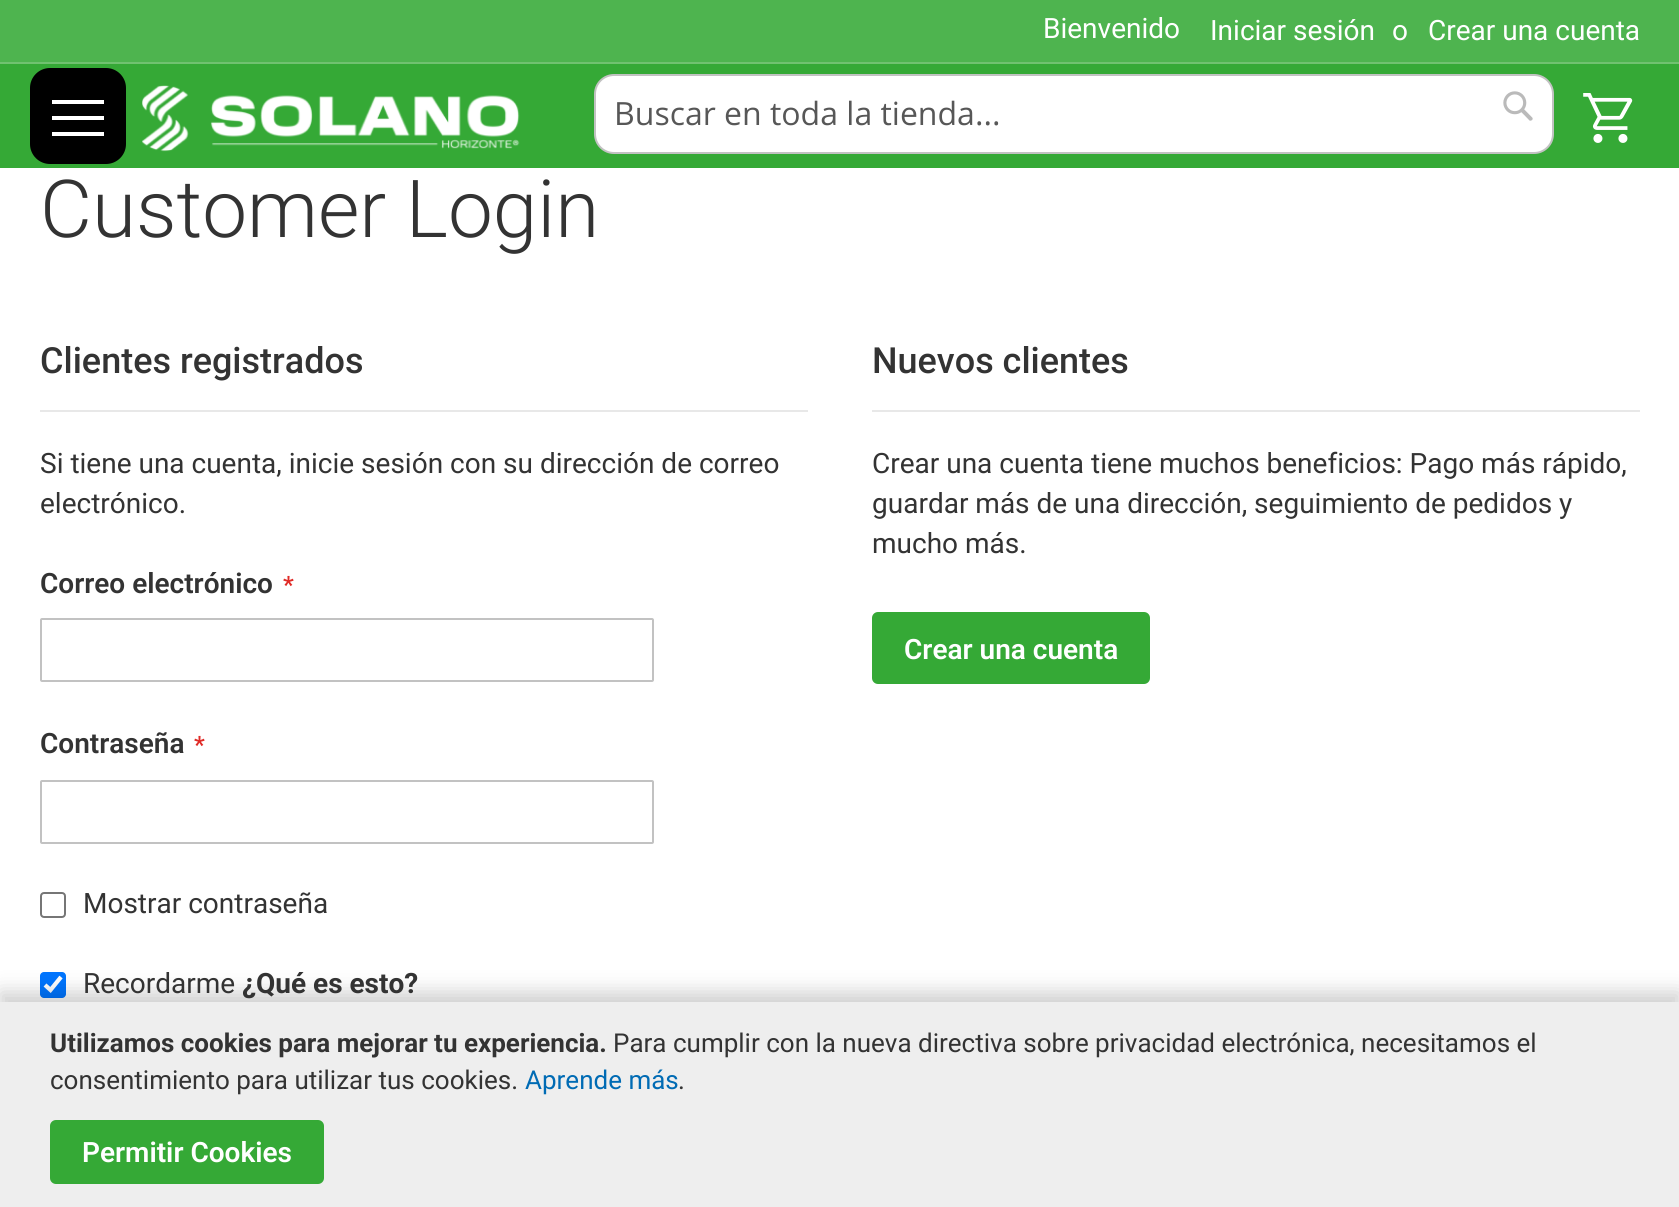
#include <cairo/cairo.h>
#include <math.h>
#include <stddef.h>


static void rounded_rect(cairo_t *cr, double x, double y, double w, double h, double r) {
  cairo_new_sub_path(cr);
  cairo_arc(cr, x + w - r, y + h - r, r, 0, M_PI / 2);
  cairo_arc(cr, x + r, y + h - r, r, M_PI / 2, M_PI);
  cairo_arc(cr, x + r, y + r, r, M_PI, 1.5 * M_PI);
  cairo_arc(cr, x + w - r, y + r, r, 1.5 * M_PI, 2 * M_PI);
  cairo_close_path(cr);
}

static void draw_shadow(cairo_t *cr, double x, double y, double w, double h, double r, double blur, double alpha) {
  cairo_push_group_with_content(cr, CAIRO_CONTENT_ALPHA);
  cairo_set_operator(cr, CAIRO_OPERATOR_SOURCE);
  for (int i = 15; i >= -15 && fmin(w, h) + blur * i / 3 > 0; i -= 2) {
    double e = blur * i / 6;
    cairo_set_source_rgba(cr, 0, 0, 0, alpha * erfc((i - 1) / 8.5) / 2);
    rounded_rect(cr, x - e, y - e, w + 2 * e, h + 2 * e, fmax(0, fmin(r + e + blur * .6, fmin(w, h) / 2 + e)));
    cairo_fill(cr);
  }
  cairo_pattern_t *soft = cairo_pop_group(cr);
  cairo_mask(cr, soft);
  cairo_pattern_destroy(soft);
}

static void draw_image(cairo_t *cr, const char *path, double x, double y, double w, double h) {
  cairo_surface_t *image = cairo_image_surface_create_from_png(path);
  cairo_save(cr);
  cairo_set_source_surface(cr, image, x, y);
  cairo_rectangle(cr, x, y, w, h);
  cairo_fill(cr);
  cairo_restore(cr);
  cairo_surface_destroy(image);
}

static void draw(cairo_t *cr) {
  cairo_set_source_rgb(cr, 1, 1, 1);
  cairo_paint(cr);
  cairo_set_source_rgb(cr, 53 / 255.0, 169 / 255.0, 54 / 255.0);
  cairo_rectangle(cr, 0, 64, 1679, 104);
  cairo_fill(cr);
  cairo_set_source_rgb(cr, 78 / 255.0, 180 / 255.0, 79 / 255.0);
  cairo_rectangle(cr, 0, 0, 1679, 62);
  cairo_fill(cr);
  cairo_set_source_rgb(cr, 112 / 255.0, 194 / 255.0, 112 / 255.0);
  cairo_rectangle(cr, 0, 62, 1679, 2);
  cairo_fill(cr);
  cairo_set_source_rgb(cr, 0, 0, 0);
  rounded_rect(cr, 30, 68, 96, 96, 20);
  cairo_fill(cr);
  cairo_set_source_rgb(cr, 1, 1, 1);
  cairo_rectangle(cr, 52, 116, 52, 4);
  cairo_fill(cr);
  cairo_rectangle(cr, 52, 100, 52, 4);
  cairo_fill(cr);
  cairo_rectangle(cr, 52, 132, 52, 4);
  cairo_fill(cr);
  draw_image(cr, "images/1.png", 142, 85, 378, 67);
  rounded_rect(cr, 595, 75, 958, 78, 19);
  cairo_fill_preserve(cr);
  cairo_set_source_rgb(cr, 194 / 255.0, 194 / 255.0, 194 / 255.0);
  cairo_stroke(cr);
  draw_image(cr, "images/2.png", 1503, 91, 30, 30);
  draw_image(cr, "images/3.png", 1583, 93, 50, 50);
  cairo_set_source_rgb(cr, 232 / 255.0, 232 / 255.0, 232 / 255.0);
  cairo_rectangle(cr, 40, 410, 768, 2);
  cairo_fill(cr);
  rounded_rect(cr, 41, 619, 612, 62, 1);
  cairo_set_source_rgb(cr, 194 / 255.0, 194 / 255.0, 194 / 255.0);
  cairo_stroke(cr);
  rounded_rect(cr, 41, 781, 612, 62, 1);
  cairo_stroke(cr);
  rounded_rect(cr, 41, 893, 24, 24, 3);
  cairo_set_source_rgb(cr, 118 / 255.0, 118 / 255.0, 118 / 255.0);
  cairo_stroke(cr);
  cairo_set_source_rgb(cr, 0, 117 / 255.0, 1);
  rounded_rect(cr, 40, 972, 26, 26, 4);
  cairo_fill(cr);
  cairo_new_path(cr);
  cairo_move_to(cr, 45, 985);
  cairo_line_to(cr, 50.5, 990);
  cairo_line_to(cr, 61, 977);
  cairo_set_source_rgb(cr, 1, 1, 1);
  cairo_set_line_width(cr, 4.2);
  cairo_stroke(cr);
  cairo_set_source_rgb(cr, 232 / 255.0, 232 / 255.0, 232 / 255.0);
  cairo_rectangle(cr, 872, 410, 768, 2);
  cairo_fill(cr);
  cairo_set_source_rgb(cr, 53 / 255.0, 169 / 255.0, 54 / 255.0);
  rounded_rect(cr, 873, 613, 276, 70, 5);
  cairo_fill_preserve(cr);
  cairo_set_line_width(cr, 2);
  cairo_stroke(cr);
  cairo_set_source_rgb(cr, 0, 0, 0);
  draw_shadow(cr, 0, 992, 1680, 206, 0, 10, 0.19);
  cairo_set_source_rgb(cr, 238 / 255.0, 238 / 255.0, 238 / 255.0);
  cairo_rectangle(cr, 0, 1002, 1679, 205);
  cairo_fill(cr);
  cairo_set_source_rgb(cr, 53 / 255.0, 169 / 255.0, 54 / 255.0);
  rounded_rect(cr, 51, 1121, 272, 62, 5);
  cairo_fill_preserve(cr);
  cairo_stroke(cr);
  cairo_select_font_face(cr, "Roboto", CAIRO_FONT_SLANT_NORMAL, CAIRO_FONT_WEIGHT_NORMAL);
  cairo_set_font_size(cr, 28);
  cairo_set_source_rgb(cr, 1, 1, 1);
  cairo_move_to(cr, 1043, 38);
  cairo_show_text(cr, "Bienvenido");
  cairo_move_to(cr, 1210, 40);
  cairo_show_text(cr, "Iniciar sesión");
  cairo_move_to(cr, 1392, 40);
  cairo_show_text(cr, "o");
  cairo_move_to(cr, 1428, 40);
  cairo_show_text(cr, "Crear una cuenta");
  cairo_select_font_face(cr, "Open Sans", CAIRO_FONT_SLANT_NORMAL, CAIRO_FONT_WEIGHT_NORMAL);
  cairo_set_font_size(cr, 32);
  cairo_set_source_rgb(cr, 87 / 255.0, 87 / 255.0, 87 / 255.0);
  cairo_move_to(cr, 614, 125);
  cairo_show_text(cr, "Buscar en toda la tienda...");
  cairo_select_font_face(cr, "Roboto Light", CAIRO_FONT_SLANT_NORMAL, CAIRO_FONT_WEIGHT_NORMAL);
  cairo_set_font_size(cr, 80);
  cairo_set_source_rgb(cr, 51 / 255.0, 51 / 255.0, 51 / 255.0);
  cairo_move_to(cr, 40, 237);
  cairo_show_text(cr, "Customer Login");
  cairo_select_font_face(cr, "Roboto Medium", CAIRO_FONT_SLANT_NORMAL, CAIRO_FONT_WEIGHT_NORMAL);
  cairo_set_font_size(cr, 36);
  cairo_move_to(cr, 40, 373);
  cairo_show_text(cr, "Clientes registrados");
  cairo_select_font_face(cr, "Roboto", CAIRO_FONT_SLANT_NORMAL, CAIRO_FONT_WEIGHT_NORMAL);
  cairo_set_font_size(cr, 28);
  cairo_move_to(cr, 40, 473);
  cairo_show_text(cr, "Si tiene una cuenta, inicie sesión con su dirección de correo");
  cairo_move_to(cr, 40, 513);
  cairo_show_text(cr, "electrónico.");
  cairo_select_font_face(cr, "Roboto SemiBold", CAIRO_FONT_SLANT_NORMAL, CAIRO_FONT_WEIGHT_NORMAL);
  cairo_move_to(cr, 40, 593);
  cairo_show_text(cr, "Correo electrónico");
  cairo_set_font_size(cr, 24);
  cairo_set_source_rgb(cr, 224 / 255.0, 43 / 255.0, 39 / 255.0);
  cairo_move_to(cr, 283, 593);
  cairo_show_text(cr, "*");
  cairo_set_font_size(cr, 28);
  cairo_set_source_rgb(cr, 51 / 255.0, 51 / 255.0, 51 / 255.0);
  cairo_move_to(cr, 40, 753);
  cairo_show_text(cr, "Contraseña");
  cairo_set_font_size(cr, 24);
  cairo_set_source_rgb(cr, 224 / 255.0, 43 / 255.0, 39 / 255.0);
  cairo_move_to(cr, 194, 753);
  cairo_show_text(cr, "*");
  cairo_select_font_face(cr, "Roboto", CAIRO_FONT_SLANT_NORMAL, CAIRO_FONT_WEIGHT_NORMAL);
  cairo_set_font_size(cr, 28);
  cairo_set_source_rgb(cr, 51 / 255.0, 51 / 255.0, 51 / 255.0);
  cairo_move_to(cr, 83, 913);
  cairo_show_text(cr, "Mostrar contraseña");
  cairo_move_to(cr, 83, 993);
  cairo_show_text(cr, "Recordarme");
  cairo_select_font_face(cr, "Roboto", CAIRO_FONT_SLANT_NORMAL, CAIRO_FONT_WEIGHT_BOLD);
  cairo_move_to(cr, 242, 993);
  cairo_show_text(cr, "¿Qué es esto?");
  cairo_select_font_face(cr, "Roboto Medium", CAIRO_FONT_SLANT_NORMAL, CAIRO_FONT_WEIGHT_NORMAL);
  cairo_set_font_size(cr, 36);
  cairo_move_to(cr, 872, 373);
  cairo_show_text(cr, "Nuevos clientes");
  cairo_select_font_face(cr, "Roboto", CAIRO_FONT_SLANT_NORMAL, CAIRO_FONT_WEIGHT_NORMAL);
  cairo_set_font_size(cr, 28);
  cairo_move_to(cr, 872, 473);
  cairo_show_text(cr, "Crear una cuenta tiene muchos beneficios: Pago más rápido,");
  cairo_move_to(cr, 872, 513);
  cairo_show_text(cr, "guardar más de una dirección, seguimiento de pedidos y");
  cairo_move_to(cr, 872, 553);
  cairo_show_text(cr, "mucho más.");
  cairo_select_font_face(cr, "Roboto SemiBold", CAIRO_FONT_SLANT_NORMAL, CAIRO_FONT_WEIGHT_NORMAL);
  cairo_set_source_rgb(cr, 1, 1, 1);
  cairo_move_to(cr, 904, 659);
  cairo_show_text(cr, "Crear una cuenta");
  cairo_select_font_face(cr, "Roboto", CAIRO_FONT_SLANT_NORMAL, CAIRO_FONT_WEIGHT_BOLD);
  cairo_set_font_size(cr, 26);
  cairo_set_source_rgb(cr, 51 / 255.0, 51 / 255.0, 51 / 255.0);
  cairo_move_to(cr, 50, 1052);
  cairo_show_text(cr, "Utilizamos cookies para mejorar tu experiencia.");
  cairo_select_font_face(cr, "Roboto", CAIRO_FONT_SLANT_NORMAL, CAIRO_FONT_WEIGHT_NORMAL);
  cairo_move_to(cr, 613, 1052);
  cairo_show_text(cr, "Para cumplir con la nueva directiva sobre privacidad electrónica, necesitamos el");
  cairo_move_to(cr, 50, 1089);
  cairo_show_text(cr, "consentimiento para utilizar tus cookies.");
  cairo_set_source_rgb(cr, 0, 107 / 255.0, 180 / 255.0);
  cairo_move_to(cr, 525, 1089);
  cairo_show_text(cr, "Aprende más");
  cairo_set_source_rgb(cr, 51 / 255.0, 51 / 255.0, 51 / 255.0);
  cairo_move_to(cr, 678, 1089);
  cairo_show_text(cr, ".");
  cairo_select_font_face(cr, "Roboto SemiBold", CAIRO_FONT_SLANT_NORMAL, CAIRO_FONT_WEIGHT_NORMAL);
  cairo_set_font_size(cr, 28);
  cairo_set_source_rgb(cr, 1, 1, 1);
  cairo_move_to(cr, 82, 1162);
  cairo_show_text(cr, "Permitir Cookies");
}

int main(void) {
  cairo_surface_t *surface = cairo_image_surface_create(CAIRO_FORMAT_RGB24, 1679, 1207);
  cairo_t *cr = cairo_create(surface);
  cairo_font_options_t *options = cairo_font_options_create();
  cairo_font_options_set_hint_metrics(options, CAIRO_HINT_METRICS_OFF);
  cairo_font_options_set_hint_style(options, CAIRO_HINT_STYLE_NONE);
  cairo_set_font_options(cr, options);
  cairo_set_miter_limit(cr, 4);
  draw(cr);
  cairo_surface_write_to_png(surface, "out.png");
  cairo_font_options_destroy(options);
  cairo_destroy(cr);
  cairo_surface_destroy(surface);
  return 0;
}
